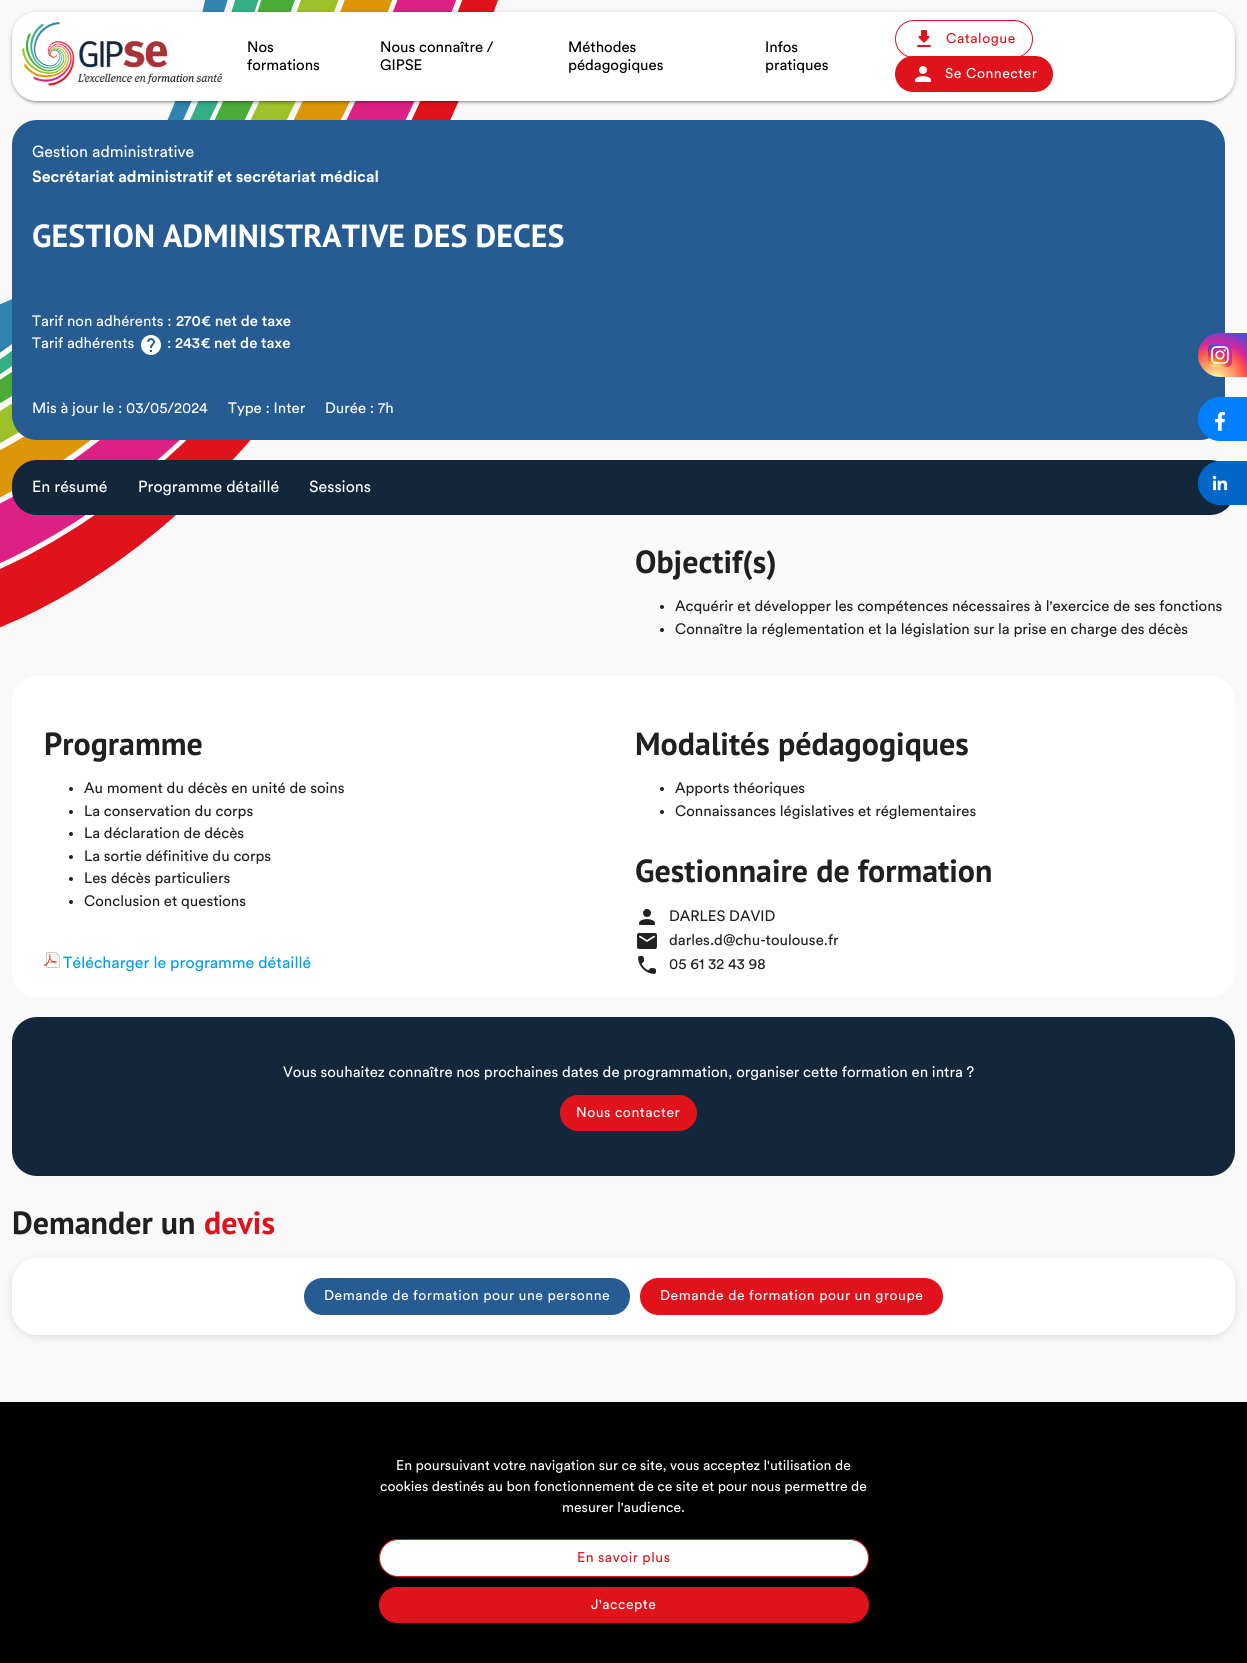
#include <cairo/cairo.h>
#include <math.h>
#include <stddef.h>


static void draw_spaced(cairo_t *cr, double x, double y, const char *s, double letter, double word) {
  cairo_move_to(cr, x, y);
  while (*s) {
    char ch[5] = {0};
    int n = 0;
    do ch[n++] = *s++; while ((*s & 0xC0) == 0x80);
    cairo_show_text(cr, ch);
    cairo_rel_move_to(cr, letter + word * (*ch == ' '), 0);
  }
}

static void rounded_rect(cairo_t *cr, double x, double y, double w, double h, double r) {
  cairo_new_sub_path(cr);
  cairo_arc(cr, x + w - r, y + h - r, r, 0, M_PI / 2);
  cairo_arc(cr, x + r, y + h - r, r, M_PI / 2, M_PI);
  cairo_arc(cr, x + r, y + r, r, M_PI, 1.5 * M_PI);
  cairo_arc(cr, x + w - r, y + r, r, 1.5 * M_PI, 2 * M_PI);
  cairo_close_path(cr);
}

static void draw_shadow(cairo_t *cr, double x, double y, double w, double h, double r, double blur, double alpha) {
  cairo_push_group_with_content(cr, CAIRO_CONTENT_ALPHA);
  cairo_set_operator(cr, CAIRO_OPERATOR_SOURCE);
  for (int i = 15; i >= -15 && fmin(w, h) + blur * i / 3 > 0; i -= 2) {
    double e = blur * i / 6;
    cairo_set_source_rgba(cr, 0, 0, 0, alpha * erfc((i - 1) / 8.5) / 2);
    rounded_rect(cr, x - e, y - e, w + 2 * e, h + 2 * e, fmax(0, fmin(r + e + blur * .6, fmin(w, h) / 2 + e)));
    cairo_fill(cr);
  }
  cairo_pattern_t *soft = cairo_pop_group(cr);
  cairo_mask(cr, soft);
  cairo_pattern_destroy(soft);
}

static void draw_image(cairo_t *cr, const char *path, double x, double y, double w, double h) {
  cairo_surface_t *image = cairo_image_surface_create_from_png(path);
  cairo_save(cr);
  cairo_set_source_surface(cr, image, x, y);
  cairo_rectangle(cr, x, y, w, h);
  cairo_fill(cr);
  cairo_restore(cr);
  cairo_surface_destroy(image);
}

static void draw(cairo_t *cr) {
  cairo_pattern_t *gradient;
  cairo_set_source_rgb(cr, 249 / 255.0, 249 / 255.0, 249 / 255.0);
  cairo_paint(cr);
  draw_image(cr, "images/1.png", 0, 0, 498, 628);
  cairo_set_source_rgb(cr, 0, 0, 0);
  draw_shadow(cr, 12, 13, 1223, 89, 25, 2.5, 0.2);
  draw_shadow(cr, 14, 17, 1219, 85, 23, 0.5, 0.12);
  draw_shadow(cr, 12, 14, 1223, 89, 25, 1, 0.14);
  cairo_set_source_rgb(cr, 1, 1, 1);
  rounded_rect(cr, 12, 12, 1223, 89, 25);
  cairo_fill(cr);
  draw_image(cr, "images/2.png", 22, 22, 200, 64);
  rounded_rect(cr, 895.5, 20.5, 137, 37, 18.5);
  cairo_set_source_rgb(cr, 224 / 255.0, 18 / 255.0, 27 / 255.0);
  cairo_set_line_width(cr, 1);
  cairo_stroke(cr);
  draw_image(cr, "images/3.png", 917, 30, 14, 17);
  rounded_rect(cr, 895, 56, 158, 36, 18);
  cairo_fill(cr);
  draw_image(cr, "images/4.png", 915, 66, 16, 16);
  cairo_set_source_rgb(cr, 38 / 255.0, 92 / 255.0, 146 / 255.0);
  rounded_rect(cr, 12, 120, 1213, 320, 25);
  cairo_fill(cr);
  draw_image(cr, "images/5.png", 141, 335, 20, 20);
  cairo_set_source_rgb(cr, 18 / 255.0, 39 / 255.0, 60 / 255.0);
  rounded_rect(cr, 12, 460, 1223, 55, 25);
  cairo_fill(cr);
  cairo_set_source_rgb(cr, 32 / 255.0, 32 / 255.0, 32 / 255.0);
  cairo_arc(cr, 662, 607, 2, 0, 2 * M_PI);
  cairo_fill(cr);
  cairo_arc(cr, 662, 630, 2, 0, 2 * M_PI);
  cairo_fill(cr);
  cairo_set_source_rgb(cr, 1, 1, 1);
  rounded_rect(cr, 12, 676, 1223, 321, 25);
  cairo_fill(cr);
  cairo_set_source_rgb(cr, 33 / 255.0, 33 / 255.0, 33 / 255.0);
  cairo_arc(cr, 71, 789, 2, 0, 2 * M_PI);
  cairo_fill(cr);
  cairo_arc(cr, 71, 812, 2, 0, 2 * M_PI);
  cairo_fill(cr);
  cairo_arc(cr, 71, 834, 2, 0, 2 * M_PI);
  cairo_fill(cr);
  cairo_arc(cr, 71, 857, 2, 0, 2 * M_PI);
  cairo_fill(cr);
  cairo_arc(cr, 71, 879, 2, 0, 2 * M_PI);
  cairo_fill(cr);
  cairo_arc(cr, 71, 902, 2, 0, 2 * M_PI);
  cairo_fill(cr);
  draw_image(cr, "images/6.png", 44, 952, 16, 16);
  cairo_arc(cr, 662, 789, 2, 0, 2 * M_PI);
  cairo_fill(cr);
  cairo_arc(cr, 662, 812, 2, 0, 2 * M_PI);
  cairo_fill(cr);
  draw_image(cr, "images/7.png", 639, 909, 16, 16);
  draw_image(cr, "images/8.png", 637, 933, 20, 16);
  draw_image(cr, "images/9.png", 638, 956, 18, 18);
  cairo_set_source_rgb(cr, 18 / 255.0, 39 / 255.0, 60 / 255.0);
  rounded_rect(cr, 12, 1017, 1223, 159, 25);
  cairo_fill(cr);
  cairo_set_source_rgb(cr, 224 / 255.0, 18 / 255.0, 27 / 255.0);
  rounded_rect(cr, 560, 1095, 137, 36, 18);
  cairo_fill(cr);
  cairo_set_source_rgb(cr, 99 / 255.0, 99 / 255.0, 99 / 255.0);
  draw_shadow(cr, 12, 1260, 1223, 77, 25, 4, 0.2);
  cairo_set_source_rgb(cr, 1, 1, 1);
  rounded_rect(cr, 12, 1258, 1223, 77, 25);
  cairo_fill(cr);
  cairo_set_source_rgb(cr, 38 / 255.0, 92 / 255.0, 146 / 255.0);
  rounded_rect(cr, 304, 1278, 326, 37, 18.5);
  cairo_fill(cr);
  cairo_set_source_rgb(cr, 224 / 255.0, 18 / 255.0, 27 / 255.0);
  rounded_rect(cr, 640, 1278, 303, 37, 18.5);
  cairo_fill(cr);
  gradient = cairo_pattern_create_radial(1216, 380, 0, 1216, 380, 63);
  cairo_pattern_add_color_stop_rgba(gradient, 0, 253 / 255.0, 244 / 255.0, 151 / 255.0, 1);
  cairo_pattern_add_color_stop_rgba(gradient, 0.05, 253 / 255.0, 244 / 255.0, 151 / 255.0, 1);
  cairo_pattern_add_color_stop_rgba(gradient, 0.45, 253 / 255.0, 89 / 255.0, 73 / 255.0, 1);
  cairo_pattern_add_color_stop_rgba(gradient, 0.6, 214 / 255.0, 36 / 255.0, 159 / 255.0, 1);
  cairo_pattern_add_color_stop_rgba(gradient, 0.9, 40 / 255.0, 90 / 255.0, 235 / 255.0, 1);
  cairo_set_source(cr, gradient);
  cairo_pattern_destroy(gradient);
  cairo_new_path(cr);
  cairo_move_to(cr, 1220, 333);
  cairo_line_to(cr, 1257, 333);
  cairo_line_to(cr, 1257, 377);
  cairo_line_to(cr, 1220, 377);
  cairo_curve_to(cr, 1208, 377, 1198, 367, 1198, 355);
  cairo_curve_to(cr, 1198, 343, 1208, 333, 1220, 333);
  cairo_close_path(cr);
  cairo_fill(cr);
  draw_image(cr, "images/10.png", 1208, 343, 24, 24);
  cairo_set_source_rgb(cr, 0, 128 / 255.0, 1);
  cairo_new_path(cr);
  cairo_move_to(cr, 1220, 397);
  cairo_line_to(cr, 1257, 397);
  cairo_line_to(cr, 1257, 441);
  cairo_line_to(cr, 1220, 441);
  cairo_curve_to(cr, 1208, 441, 1198, 431, 1198, 419);
  cairo_curve_to(cr, 1198, 407, 1208, 397, 1220, 397);
  cairo_close_path(cr);
  cairo_fill(cr);
  draw_image(cr, "images/11.png", 1215, 411, 10, 20);
  cairo_set_source_rgb(cr, 0, 102 / 255.0, 200 / 255.0);
  cairo_new_path(cr);
  cairo_move_to(cr, 1220, 461);
  cairo_line_to(cr, 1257, 461);
  cairo_line_to(cr, 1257, 505);
  cairo_line_to(cr, 1220, 505);
  cairo_curve_to(cr, 1208, 505, 1198, 495, 1198, 483);
  cairo_curve_to(cr, 1198, 471, 1208, 461, 1220, 461);
  cairo_close_path(cr);
  cairo_fill(cr);
  draw_image(cr, "images/12.png", 1212, 475, 16, 16);
  cairo_set_source_rgb(cr, 0, 0, 0);
  cairo_rectangle(cr, 0, 1402, 1247, 261);
  cairo_fill(cr);
  cairo_set_source_rgb(cr, 1, 1, 1);
  rounded_rect(cr, 379.5, 1539.5, 489, 37, 18.5);
  cairo_fill_preserve(cr);
  cairo_set_source_rgb(cr, 224 / 255.0, 18 / 255.0, 27 / 255.0);
  cairo_stroke(cr);
  rounded_rect(cr, 379, 1587, 490, 36, 18);
  cairo_fill(cr);
  cairo_select_font_face(cr, "Circular", CAIRO_FONT_SLANT_NORMAL, CAIRO_FONT_WEIGHT_NORMAL);
  cairo_set_font_size(cr, 15);
  cairo_set_source_rgb(cr, 0, 0, 0);
  cairo_move_to(cr, 247, 52);
  cairo_show_text(cr, "Nos");
  cairo_move_to(cr, 247, 70);
  cairo_show_text(cr, "formations");
  cairo_move_to(cr, 380, 52);
  cairo_show_text(cr, "Nous connaître /");
  cairo_move_to(cr, 380, 70);
  cairo_show_text(cr, "GIPSE");
  cairo_move_to(cr, 568, 52);
  cairo_show_text(cr, "Méthodes");
  cairo_move_to(cr, 568, 70);
  cairo_show_text(cr, "pédagogiques");
  cairo_move_to(cr, 765, 52);
  cairo_show_text(cr, "Infos");
  cairo_move_to(cr, 765, 70);
  cairo_show_text(cr, "pratiques");
  cairo_set_font_size(cr, 14);
  cairo_set_source_rgb(cr, 224 / 255.0, 18 / 255.0, 27 / 255.0);
  draw_spaced(cr, 946, 43, "Catalogue", 0.5, 0);
  cairo_set_source_rgb(cr, 1, 1, 1);
  draw_spaced(cr, 945, 78, "Se Connecter", 0.5, 0);
  cairo_set_font_size(cr, 16);
  cairo_move_to(cr, 32, 157);
  cairo_show_text(cr, "Gestion administrative");
  cairo_select_font_face(cr, "Circular", CAIRO_FONT_SLANT_NORMAL, CAIRO_FONT_WEIGHT_BOLD);
  cairo_move_to(cr, 32, 182);
  cairo_show_text(cr, "Secrétariat administratif et secrétariat médical");
  cairo_select_font_face(cr, "PT Sans", CAIRO_FONT_SLANT_NORMAL, CAIRO_FONT_WEIGHT_BOLD);
  cairo_set_font_size(cr, 32);
  cairo_move_to(cr, 32, 247);
  cairo_show_text(cr, "GESTION ADMINISTRATIVE DES DECES");
  cairo_select_font_face(cr, "Circular", CAIRO_FONT_SLANT_NORMAL, CAIRO_FONT_WEIGHT_NORMAL);
  cairo_set_font_size(cr, 15);
  cairo_move_to(cr, 32, 326);
  cairo_show_text(cr, "Tarif non adhérents :");
  cairo_select_font_face(cr, "Circular Medium", CAIRO_FONT_SLANT_NORMAL, CAIRO_FONT_WEIGHT_NORMAL);
  cairo_move_to(cr, 176, 326);
  cairo_show_text(cr, "270€ net de taxe");
  cairo_select_font_face(cr, "Circular", CAIRO_FONT_SLANT_NORMAL, CAIRO_FONT_WEIGHT_NORMAL);
  cairo_move_to(cr, 32, 348);
  cairo_show_text(cr, "Tarif adhérents");
  cairo_move_to(cr, 167, 348);
  cairo_show_text(cr, ":");
  cairo_select_font_face(cr, "Circular Medium", CAIRO_FONT_SLANT_NORMAL, CAIRO_FONT_WEIGHT_NORMAL);
  cairo_move_to(cr, 175, 348);
  cairo_show_text(cr, "243€ net de taxe");
  cairo_select_font_face(cr, "Circular", CAIRO_FONT_SLANT_NORMAL, CAIRO_FONT_WEIGHT_NORMAL);
  cairo_move_to(cr, 32, 413);
  cairo_show_text(cr, "Mis à jour le : 03/05/2024");
  cairo_move_to(cr, 228, 413);
  cairo_show_text(cr, "Type : Inter");
  cairo_move_to(cr, 325, 413);
  cairo_show_text(cr, "Durée : 7h");
  cairo_set_font_size(cr, 16);
  cairo_move_to(cr, 32, 492);
  cairo_show_text(cr, "En résumé");
  cairo_move_to(cr, 138, 492);
  cairo_show_text(cr, "Programme détaillé");
  cairo_move_to(cr, 309, 492);
  cairo_show_text(cr, "Sessions");
  cairo_select_font_face(cr, "PT Sans", CAIRO_FONT_SLANT_NORMAL, CAIRO_FONT_WEIGHT_BOLD);
  cairo_set_font_size(cr, 32);
  cairo_set_source_rgb(cr, 32 / 255.0, 32 / 255.0, 32 / 255.0);
  cairo_move_to(cr, 635, 573);
  cairo_show_text(cr, "Objectif(s)");
  cairo_select_font_face(cr, "Circular", CAIRO_FONT_SLANT_NORMAL, CAIRO_FONT_WEIGHT_NORMAL);
  cairo_set_font_size(cr, 15);
  cairo_move_to(cr, 675, 611);
  cairo_show_text(cr, "Acquérir et développer les compétences nécessaires à l'exercice de ses fonctions");
  cairo_move_to(cr, 675, 634);
  cairo_show_text(cr, "Connaître la réglementation et la législation sur la prise en charge des décès");
  cairo_select_font_face(cr, "PT Sans", CAIRO_FONT_SLANT_NORMAL, CAIRO_FONT_WEIGHT_BOLD);
  cairo_set_font_size(cr, 32);
  cairo_move_to(cr, 44, 755);
  cairo_show_text(cr, "Programme");
  cairo_select_font_face(cr, "Circular", CAIRO_FONT_SLANT_NORMAL, CAIRO_FONT_WEIGHT_NORMAL);
  cairo_set_font_size(cr, 15);
  cairo_move_to(cr, 84, 793);
  cairo_show_text(cr, "Au moment du décès en unité de soins");
  cairo_move_to(cr, 84, 816);
  cairo_show_text(cr, "La conservation du corps");
  cairo_move_to(cr, 84, 838);
  cairo_show_text(cr, "La déclaration de décès");
  cairo_move_to(cr, 84, 861);
  cairo_show_text(cr, "La sortie définitive du corps");
  cairo_move_to(cr, 84, 883);
  cairo_show_text(cr, "Les décès particuliers");
  cairo_move_to(cr, 84, 906);
  cairo_show_text(cr, "Conclusion et questions");
  cairo_set_font_size(cr, 16);
  cairo_set_source_rgb(cr, 3 / 255.0, 155 / 255.0, 229 / 255.0);
  cairo_move_to(cr, 63, 968);
  cairo_show_text(cr, "Télécharger le programme détaillé");
  cairo_select_font_face(cr, "PT Sans", CAIRO_FONT_SLANT_NORMAL, CAIRO_FONT_WEIGHT_BOLD);
  cairo_set_font_size(cr, 32);
  cairo_set_source_rgb(cr, 32 / 255.0, 32 / 255.0, 32 / 255.0);
  cairo_move_to(cr, 635, 755);
  cairo_show_text(cr, "Modalités pédagogiques");
  cairo_select_font_face(cr, "Circular", CAIRO_FONT_SLANT_NORMAL, CAIRO_FONT_WEIGHT_NORMAL);
  cairo_set_font_size(cr, 15);
  cairo_move_to(cr, 675, 793);
  cairo_show_text(cr, "Apports théoriques");
  cairo_move_to(cr, 675, 816);
  cairo_show_text(cr, "Connaissances législatives et réglementaires");
  cairo_select_font_face(cr, "PT Sans", CAIRO_FONT_SLANT_NORMAL, CAIRO_FONT_WEIGHT_BOLD);
  cairo_set_font_size(cr, 32);
  cairo_move_to(cr, 635, 882);
  cairo_show_text(cr, "Gestionnaire de formation");
  cairo_select_font_face(cr, "Circular", CAIRO_FONT_SLANT_NORMAL, CAIRO_FONT_WEIGHT_NORMAL);
  cairo_set_font_size(cr, 15);
  cairo_move_to(cr, 669, 921);
  cairo_show_text(cr, "DARLES DAVID");
  cairo_move_to(cr, 669, 945);
  cairo_show_text(cr, "darles.d@chu-toulouse.fr");
  cairo_move_to(cr, 669, 969);
  cairo_show_text(cr, "05 61 32 43 98");
  cairo_set_source_rgb(cr, 1, 1, 1);
  cairo_move_to(cr, 283, 1077);
  cairo_show_text(cr, "Vous souhaitez connaître nos prochaines dates de programmation, organiser cette formation en intra ?");
  cairo_set_font_size(cr, 14);
  draw_spaced(cr, 576, 1117, "Nous contacter", 0.5, 0);
  cairo_select_font_face(cr, "PT Sans", CAIRO_FONT_SLANT_NORMAL, CAIRO_FONT_WEIGHT_BOLD);
  cairo_set_font_size(cr, 32);
  cairo_set_source_rgb(cr, 32 / 255.0, 32 / 255.0, 32 / 255.0);
  cairo_move_to(cr, 12, 1234);
  cairo_show_text(cr, "Demander un");
  cairo_set_source_rgb(cr, 224 / 255.0, 18 / 255.0, 27 / 255.0);
  cairo_move_to(cr, 204, 1234);
  cairo_show_text(cr, "devis");
  cairo_select_font_face(cr, "Circular", CAIRO_FONT_SLANT_NORMAL, CAIRO_FONT_WEIGHT_NORMAL);
  cairo_set_font_size(cr, 14);
  cairo_set_source_rgb(cr, 1, 1, 1);
  draw_spaced(cr, 324, 1300, "Demande de formation pour une personne", 0.5, 0);
  draw_spaced(cr, 660, 1300, "Demande de formation pour un groupe", 0.5, 0);
  cairo_move_to(cr, 396, 1470);
  cairo_show_text(cr, "En poursuivant votre navigation sur ce site, vous acceptez l'utilisation de");
  cairo_move_to(cr, 380, 1491);
  cairo_show_text(cr, "cookies destinés au bon fonctionnement de ce site et pour nous permettre de");
  cairo_move_to(cr, 562, 1512);
  cairo_show_text(cr, "mesurer l'audience.");
  cairo_set_source_rgb(cr, 224 / 255.0, 18 / 255.0, 27 / 255.0);
  draw_spaced(cr, 577, 1562, "En savoir plus", 0.5, 0);
  cairo_set_source_rgb(cr, 1, 1, 1);
  draw_spaced(cr, 591, 1609, "J'accepte", 0.5, 0);
}

int main(void) {
  cairo_surface_t *surface = cairo_image_surface_create(CAIRO_FORMAT_RGB24, 1247, 1663);
  cairo_t *cr = cairo_create(surface);
  cairo_font_options_t *options = cairo_font_options_create();
  cairo_font_options_set_hint_metrics(options, CAIRO_HINT_METRICS_OFF);
  cairo_font_options_set_hint_style(options, CAIRO_HINT_STYLE_NONE);
  cairo_set_font_options(cr, options);
  cairo_set_miter_limit(cr, 4);
  draw(cr);
  cairo_surface_write_to_png(surface, "out.png");
  cairo_font_options_destroy(options);
  cairo_destroy(cr);
  cairo_surface_destroy(surface);
  return 0;
}
